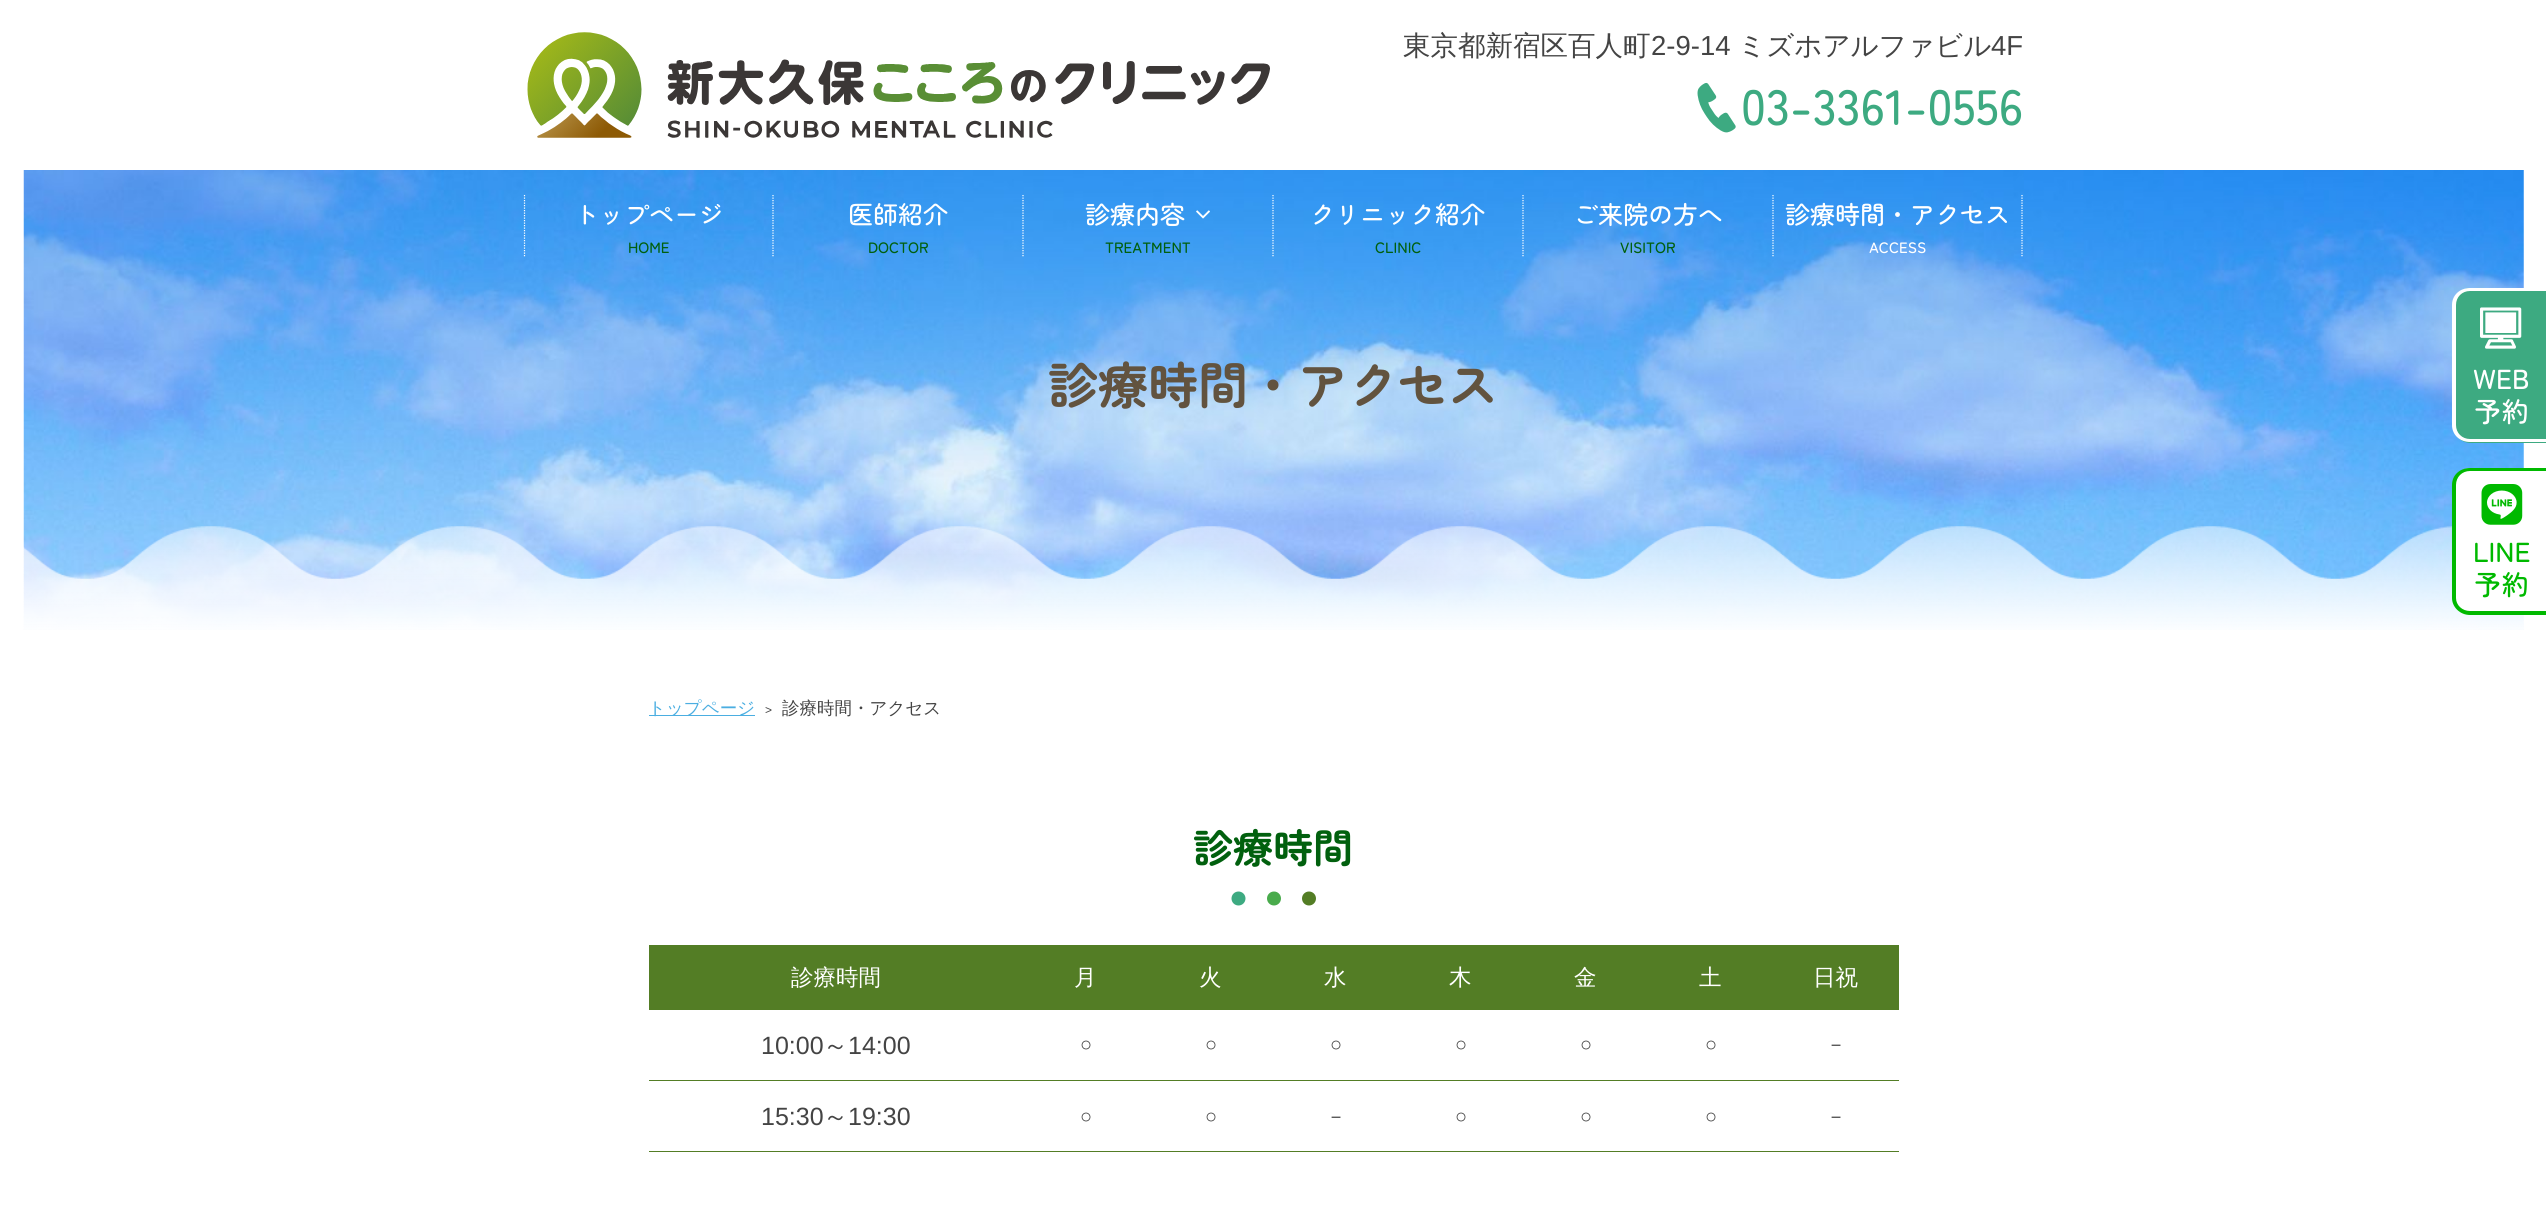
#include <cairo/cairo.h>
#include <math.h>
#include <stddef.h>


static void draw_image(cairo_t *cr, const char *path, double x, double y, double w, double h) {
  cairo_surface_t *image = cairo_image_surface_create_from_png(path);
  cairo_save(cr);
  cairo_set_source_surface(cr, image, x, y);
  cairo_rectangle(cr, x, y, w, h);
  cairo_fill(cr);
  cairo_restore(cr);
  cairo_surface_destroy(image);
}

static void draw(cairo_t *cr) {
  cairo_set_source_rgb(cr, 1, 1, 1);
  cairo_paint(cr);
  draw_image(cr, "images/1.png", 527, 32, 743, 106);
  draw_image(cr, "images/2.png", 1697, 82, 39, 51);
  draw_image(cr, "images/6.png", 23, 170, 2501, 460);
  cairo_set_source_rgb(cr, 61 / 255.0, 170 / 255.0, 129 / 255.0);
  cairo_new_path(cr);
  cairo_move_to(cr, 2471, 288);
  cairo_line_to(cr, 2546, 288);
  cairo_line_to(cr, 2546, 443);
  cairo_line_to(cr, 2471, 443);
  cairo_curve_to(cr, 2461, 443, 2453, 435, 2453, 425);
  cairo_line_to(cr, 2453, 306);
  cairo_curve_to(cr, 2453, 296, 2461, 288, 2471, 288);
  cairo_close_path(cr);
  cairo_fill(cr);
  cairo_set_source_rgb(cr, 1, 1, 1);
  cairo_set_fill_rule(cr, CAIRO_FILL_RULE_EVEN_ODD);
  cairo_new_path(cr);
  cairo_move_to(cr, 2470, 288);
  cairo_line_to(cr, 2546, 288);
  cairo_line_to(cr, 2546, 442);
  cairo_line_to(cr, 2470, 442);
  cairo_curve_to(cr, 2460, 442, 2452, 435, 2452, 425);
  cairo_line_to(cr, 2452, 305);
  cairo_curve_to(cr, 2452, 295, 2460, 288, 2470, 288);
  cairo_close_path(cr);
  cairo_move_to(cr, 2470, 291);
  cairo_line_to(cr, 2546, 291);
  cairo_line_to(cr, 2546, 439);
  cairo_line_to(cr, 2470, 439);
  cairo_curve_to(cr, 2462, 439, 2456, 433, 2456, 425);
  cairo_line_to(cr, 2456, 305);
  cairo_curve_to(cr, 2456, 297, 2462, 291, 2470, 291);
  cairo_close_path(cr);
  cairo_fill(cr);
  draw_image(cr, "images/3.png", 2480, 307, 42, 42);
  cairo_new_path(cr);
  cairo_move_to(cr, 2471, 468);
  cairo_line_to(cr, 2546, 468);
  cairo_line_to(cr, 2546, 615);
  cairo_line_to(cr, 2471, 615);
  cairo_curve_to(cr, 2461, 615, 2453, 607, 2453, 597);
  cairo_line_to(cr, 2453, 486);
  cairo_curve_to(cr, 2453, 476, 2461, 468, 2471, 468);
  cairo_close_path(cr);
  cairo_fill(cr);
  cairo_set_source_rgb(cr, 0, 185 / 255.0, 0);
  cairo_new_path(cr);
  cairo_move_to(cr, 2470, 468);
  cairo_line_to(cr, 2546, 468);
  cairo_line_to(cr, 2546, 615);
  cairo_line_to(cr, 2470, 615);
  cairo_curve_to(cr, 2460, 615, 2452, 607, 2452, 598);
  cairo_line_to(cr, 2452, 485);
  cairo_curve_to(cr, 2452, 475, 2460, 468, 2470, 468);
  cairo_close_path(cr);
  cairo_move_to(cr, 2470, 471);
  cairo_line_to(cr, 2546, 471);
  cairo_line_to(cr, 2546, 611);
  cairo_line_to(cr, 2470, 611);
  cairo_curve_to(cr, 2462, 611, 2456, 605, 2456, 598);
  cairo_line_to(cr, 2456, 485);
  cairo_curve_to(cr, 2456, 477, 2462, 471, 2470, 471);
  cairo_close_path(cr);
  cairo_fill(cr);
  draw_image(cr, "images/4.png", 2481, 484, 42, 41);
  cairo_new_path(cr);
  cairo_move_to(cr, 773, 195);
  cairo_line_to(cr, 773, 257.5);
  cairo_set_source_rgb(cr, 1, 1, 1);
  cairo_set_line_width(cr, 1.2);
  cairo_set_dash(cr, (double[]){1.25, 1.25}, 2, 0);
  cairo_stroke(cr);
  cairo_new_path(cr);
  cairo_move_to(cr, 524.5, 195);
  cairo_line_to(cr, 524.5, 257.5);
  cairo_stroke(cr);
  cairo_new_path(cr);
  cairo_move_to(cr, 1023, 195);
  cairo_line_to(cr, 1023, 257.5);
  cairo_stroke(cr);
  cairo_new_path(cr);
  cairo_move_to(cr, 1273, 195);
  cairo_line_to(cr, 1273, 257.5);
  cairo_stroke(cr);
  draw_image(cr, "images/5.png", 1196, 210, 14, 9);
  cairo_new_path(cr);
  cairo_move_to(cr, 1523, 195);
  cairo_line_to(cr, 1523, 257.5);
  cairo_stroke(cr);
  cairo_new_path(cr);
  cairo_move_to(cr, 1773, 195);
  cairo_line_to(cr, 1773, 257.5);
  cairo_stroke(cr);
  cairo_new_path(cr);
  cairo_move_to(cr, 2022, 195);
  cairo_line_to(cr, 2022, 257.5);
  cairo_stroke(cr);
  cairo_set_source_rgb(cr, 75 / 255.0, 174 / 255.0, 225 / 255.0);
  cairo_rectangle(cr, 649, 715, 106, 1);
  cairo_fill(cr);
  cairo_set_source_rgb(cr, 61 / 255.0, 170 / 255.0, 129 / 255.0);
  cairo_arc(cr, 1238.5, 898.5, 7, 0, 2 * M_PI);
  cairo_fill(cr);
  cairo_set_source_rgb(cr, 73 / 255.0, 171 / 255.0, 76 / 255.0);
  cairo_arc(cr, 1274, 898.5, 7, 0, 2 * M_PI);
  cairo_fill(cr);
  cairo_set_source_rgb(cr, 83 / 255.0, 125 / 255.0, 37 / 255.0);
  cairo_arc(cr, 1309, 898.5, 7, 0, 2 * M_PI);
  cairo_fill(cr);
  cairo_rectangle(cr, 649, 945, 1250, 65);
  cairo_fill(cr);
  cairo_rectangle(cr, 649, 1080, 1250, 1);
  cairo_fill(cr);
  cairo_rectangle(cr, 649, 1151, 1250, 1);
  cairo_fill(cr);
  cairo_select_font_face(cr, "WenQuanYi Zen Hei Medium", CAIRO_FONT_SLANT_NORMAL, CAIRO_FONT_WEIGHT_NORMAL);
  cairo_set_font_size(cr, 27.5);
  cairo_set_source_rgb(cr, 68 / 255.0, 68 / 255.0, 68 / 255.0);
  cairo_move_to(cr, 1403, 55);
  cairo_show_text(cr, "東京都新宿区百人町");
  cairo_select_font_face(cr, "Liberation Sans", CAIRO_FONT_SLANT_NORMAL, CAIRO_FONT_WEIGHT_NORMAL);
  cairo_move_to(cr, 1651, 55);
  cairo_show_text(cr, "2-9-14");
  cairo_select_font_face(cr, "WenQuanYi Zen Hei Medium", CAIRO_FONT_SLANT_NORMAL, CAIRO_FONT_WEIGHT_NORMAL);
  cairo_move_to(cr, 1738, 55);
  cairo_show_text(cr, "ミズホアルファビル");
  cairo_select_font_face(cr, "Liberation Sans", CAIRO_FONT_SLANT_NORMAL, CAIRO_FONT_WEIGHT_NORMAL);
  cairo_move_to(cr, 1991, 55);
  cairo_show_text(cr, "4F");
  cairo_select_font_face(cr, "Zen Maru Gothic Medium", CAIRO_FONT_SLANT_NORMAL, CAIRO_FONT_WEIGHT_NORMAL);
  cairo_set_font_size(cr, 49.5);
  cairo_set_source_rgb(cr, 61 / 255.0, 170 / 255.0, 129 / 255.0);
  cairo_move_to(cr, 1741, 125);
  cairo_show_text(cr, "03-3361-0556");
  cairo_set_font_size(cr, 27.5);
  cairo_set_source_rgb(cr, 1, 1, 1);
  cairo_move_to(cr, 2473, 389);
  cairo_show_text(cr, "WEB");
  cairo_move_to(cr, 2474, 422);
  cairo_show_text(cr, "予約");
  cairo_set_source_rgb(cr, 0, 185 / 255.0, 0);
  cairo_move_to(cr, 2473, 562);
  cairo_show_text(cr, "LINE");
  cairo_move_to(cr, 2474, 595);
  cairo_show_text(cr, "予約");
  cairo_set_font_size(cr, 25);
  cairo_set_source_rgb(cr, 1, 1, 1);
  cairo_move_to(cr, 574, 224);
  cairo_show_text(cr, "トップページ");
  cairo_set_font_size(cr, 15);
  cairo_set_source_rgb(cr, 1 / 255.0, 96 / 255.0, 14 / 255.0);
  cairo_move_to(cr, 628, 253);
  cairo_show_text(cr, "HOME");
  cairo_set_font_size(cr, 25);
  cairo_set_source_rgb(cr, 1, 1, 1);
  cairo_move_to(cr, 848, 224);
  cairo_show_text(cr, "医師紹介");
  cairo_set_font_size(cr, 15);
  cairo_set_source_rgb(cr, 1 / 255.0, 96 / 255.0, 14 / 255.0);
  cairo_move_to(cr, 868, 253);
  cairo_show_text(cr, "DOCTOR");
  cairo_set_font_size(cr, 25);
  cairo_set_source_rgb(cr, 1, 1, 1);
  cairo_move_to(cr, 1085, 224);
  cairo_show_text(cr, "診療内容");
  cairo_set_font_size(cr, 15);
  cairo_set_source_rgb(cr, 1 / 255.0, 96 / 255.0, 14 / 255.0);
  cairo_move_to(cr, 1105, 253);
  cairo_show_text(cr, "TREATMENT");
  cairo_set_font_size(cr, 25);
  cairo_set_source_rgb(cr, 1, 1, 1);
  cairo_move_to(cr, 1310, 224);
  cairo_show_text(cr, "クリニック紹介");
  cairo_set_font_size(cr, 15);
  cairo_set_source_rgb(cr, 1 / 255.0, 96 / 255.0, 14 / 255.0);
  cairo_move_to(cr, 1375, 253);
  cairo_show_text(cr, "CLINIC");
  cairo_set_font_size(cr, 25);
  cairo_set_source_rgb(cr, 1, 1, 1);
  cairo_move_to(cr, 1573, 224);
  cairo_show_text(cr, "ご来院の方へ");
  cairo_set_font_size(cr, 15);
  cairo_set_source_rgb(cr, 1 / 255.0, 96 / 255.0, 14 / 255.0);
  cairo_move_to(cr, 1620, 253);
  cairo_show_text(cr, "VISITOR");
  cairo_set_font_size(cr, 25);
  cairo_set_source_rgb(cr, 1, 1, 1);
  cairo_move_to(cr, 1785, 224);
  cairo_show_text(cr, "診療時間・アクセス");
  cairo_set_font_size(cr, 15);
  cairo_move_to(cr, 1869, 253);
  cairo_show_text(cr, "ACCESS");
  cairo_select_font_face(cr, "Zen Maru Gothic", CAIRO_FONT_SLANT_NORMAL, CAIRO_FONT_WEIGHT_BOLD);
  cairo_set_font_size(cr, 50);
  cairo_set_source_rgb(cr, 98 / 255.0, 83 / 255.0, 63 / 255.0);
  cairo_move_to(cr, 1048, 404);
  cairo_show_text(cr, "診療時間・アクセス");
  cairo_select_font_face(cr, "WenQuanYi Zen Hei Medium", CAIRO_FONT_SLANT_NORMAL, CAIRO_FONT_WEIGHT_NORMAL);
  cairo_set_font_size(cr, 17.5);
  cairo_set_source_rgb(cr, 75 / 255.0, 174 / 255.0, 225 / 255.0);
  cairo_move_to(cr, 648, 714);
  cairo_show_text(cr, "トップページ");
  cairo_select_font_face(cr, "Liberation Sans", CAIRO_FONT_SLANT_NORMAL, CAIRO_FONT_WEIGHT_NORMAL);
  cairo_set_font_size(cr, 12);
  cairo_set_source_rgb(cr, 68 / 255.0, 68 / 255.0, 68 / 255.0);
  cairo_move_to(cr, 765, 714);
  cairo_show_text(cr, ">");
  cairo_select_font_face(cr, "WenQuanYi Zen Hei Medium", CAIRO_FONT_SLANT_NORMAL, CAIRO_FONT_WEIGHT_NORMAL);
  cairo_set_font_size(cr, 17.5);
  cairo_move_to(cr, 782, 714);
  cairo_show_text(cr, "診療時間・アクセス");
  cairo_select_font_face(cr, "Zen Maru Gothic", CAIRO_FONT_SLANT_NORMAL, CAIRO_FONT_WEIGHT_BOLD);
  cairo_set_font_size(cr, 40);
  cairo_set_source_rgb(cr, 1 / 255.0, 96 / 255.0, 14 / 255.0);
  cairo_move_to(cr, 1193, 863);
  cairo_show_text(cr, "診療時間");
  cairo_select_font_face(cr, "WenQuanYi Zen Hei Medium", CAIRO_FONT_SLANT_NORMAL, CAIRO_FONT_WEIGHT_NORMAL);
  cairo_set_font_size(cr, 22.5);
  cairo_set_source_rgb(cr, 1, 1, 1);
  cairo_move_to(cr, 791, 985);
  cairo_show_text(cr, "診療時間");
  cairo_move_to(cr, 1074, 985);
  cairo_show_text(cr, "月");
  cairo_move_to(cr, 1199, 985);
  cairo_show_text(cr, "火");
  cairo_move_to(cr, 1324, 985);
  cairo_show_text(cr, "水");
  cairo_move_to(cr, 1449, 985);
  cairo_show_text(cr, "木");
  cairo_move_to(cr, 1574, 985);
  cairo_show_text(cr, "金");
  cairo_move_to(cr, 1699, 985);
  cairo_show_text(cr, "土");
  cairo_move_to(cr, 1813, 985);
  cairo_show_text(cr, "日祝");
  cairo_select_font_face(cr, "Liberation Sans", CAIRO_FONT_SLANT_NORMAL, CAIRO_FONT_WEIGHT_NORMAL);
  cairo_set_font_size(cr, 25);
  cairo_set_source_rgb(cr, 68 / 255.0, 68 / 255.0, 68 / 255.0);
  cairo_move_to(cr, 761, 1054);
  cairo_show_text(cr, "10:00");
  cairo_select_font_face(cr, "WenQuanYi Zen Hei Medium", CAIRO_FONT_SLANT_NORMAL, CAIRO_FONT_WEIGHT_NORMAL);
  cairo_move_to(cr, 823, 1054);
  cairo_show_text(cr, "～");
  cairo_select_font_face(cr, "Liberation Sans", CAIRO_FONT_SLANT_NORMAL, CAIRO_FONT_WEIGHT_NORMAL);
  cairo_move_to(cr, 848, 1054);
  cairo_show_text(cr, "14:00");
  cairo_set_font_size(cr, 20);
  cairo_move_to(cr, 1080, 1051);
  cairo_show_text(cr, "○");
  cairo_move_to(cr, 1205, 1051);
  cairo_show_text(cr, "○");
  cairo_move_to(cr, 1330, 1051);
  cairo_show_text(cr, "○");
  cairo_move_to(cr, 1455, 1051);
  cairo_show_text(cr, "○");
  cairo_move_to(cr, 1580, 1051);
  cairo_show_text(cr, "○");
  cairo_move_to(cr, 1705, 1051);
  cairo_show_text(cr, "○");
  cairo_select_font_face(cr, "WenQuanYi Zen Hei Medium", CAIRO_FONT_SLANT_NORMAL, CAIRO_FONT_WEIGHT_NORMAL);
  cairo_move_to(cr, 1826, 1051);
  cairo_show_text(cr, "－");
  cairo_select_font_face(cr, "Liberation Sans", CAIRO_FONT_SLANT_NORMAL, CAIRO_FONT_WEIGHT_NORMAL);
  cairo_set_font_size(cr, 25);
  cairo_move_to(cr, 761, 1125);
  cairo_show_text(cr, "15:30");
  cairo_select_font_face(cr, "WenQuanYi Zen Hei Medium", CAIRO_FONT_SLANT_NORMAL, CAIRO_FONT_WEIGHT_NORMAL);
  cairo_move_to(cr, 823, 1125);
  cairo_show_text(cr, "～");
  cairo_select_font_face(cr, "Liberation Sans", CAIRO_FONT_SLANT_NORMAL, CAIRO_FONT_WEIGHT_NORMAL);
  cairo_move_to(cr, 848, 1125);
  cairo_show_text(cr, "19:30");
  cairo_set_font_size(cr, 20);
  cairo_move_to(cr, 1080, 1123);
  cairo_show_text(cr, "○");
  cairo_move_to(cr, 1205, 1123);
  cairo_show_text(cr, "○");
  cairo_select_font_face(cr, "WenQuanYi Zen Hei Medium", CAIRO_FONT_SLANT_NORMAL, CAIRO_FONT_WEIGHT_NORMAL);
  cairo_move_to(cr, 1326, 1123);
  cairo_show_text(cr, "－");
  cairo_select_font_face(cr, "Liberation Sans", CAIRO_FONT_SLANT_NORMAL, CAIRO_FONT_WEIGHT_NORMAL);
  cairo_move_to(cr, 1455, 1123);
  cairo_show_text(cr, "○");
  cairo_move_to(cr, 1580, 1123);
  cairo_show_text(cr, "○");
  cairo_move_to(cr, 1705, 1123);
  cairo_show_text(cr, "○");
  cairo_select_font_face(cr, "WenQuanYi Zen Hei Medium", CAIRO_FONT_SLANT_NORMAL, CAIRO_FONT_WEIGHT_NORMAL);
  cairo_move_to(cr, 1826, 1123);
  cairo_show_text(cr, "－");
}

int main(void) {
  cairo_surface_t *surface = cairo_image_surface_create(CAIRO_FORMAT_RGB24, 2546, 1219);
  cairo_t *cr = cairo_create(surface);
  cairo_font_options_t *options = cairo_font_options_create();
  cairo_font_options_set_hint_metrics(options, CAIRO_HINT_METRICS_OFF);
  cairo_font_options_set_hint_style(options, CAIRO_HINT_STYLE_NONE);
  cairo_set_font_options(cr, options);
  cairo_set_miter_limit(cr, 4);
  draw(cr);
  cairo_surface_write_to_png(surface, "out.png");
  cairo_font_options_destroy(options);
  cairo_destroy(cr);
  cairo_surface_destroy(surface);
  return 0;
}
